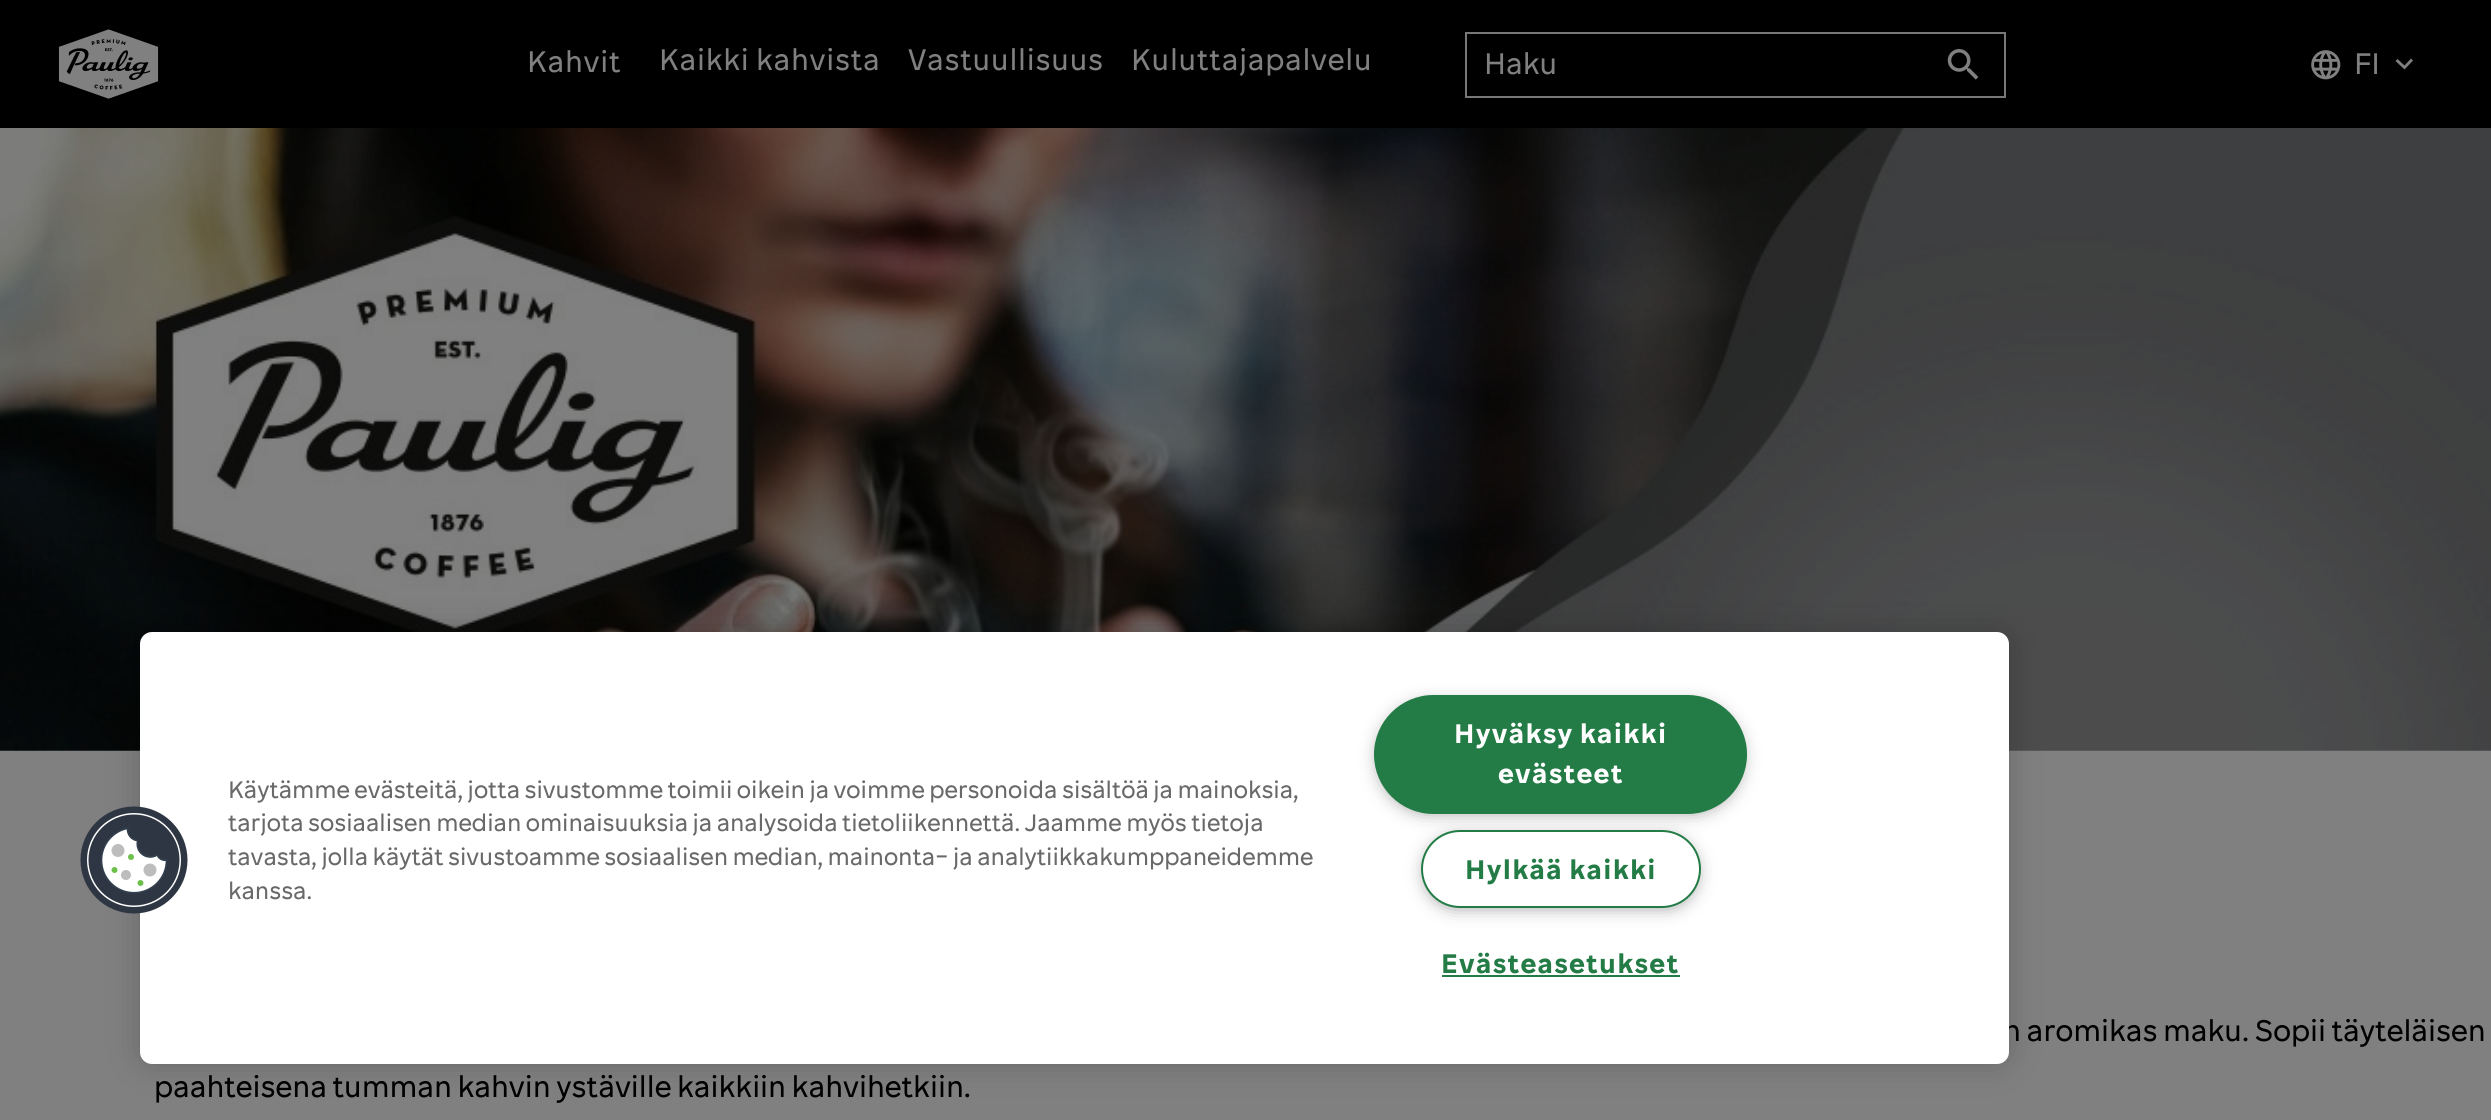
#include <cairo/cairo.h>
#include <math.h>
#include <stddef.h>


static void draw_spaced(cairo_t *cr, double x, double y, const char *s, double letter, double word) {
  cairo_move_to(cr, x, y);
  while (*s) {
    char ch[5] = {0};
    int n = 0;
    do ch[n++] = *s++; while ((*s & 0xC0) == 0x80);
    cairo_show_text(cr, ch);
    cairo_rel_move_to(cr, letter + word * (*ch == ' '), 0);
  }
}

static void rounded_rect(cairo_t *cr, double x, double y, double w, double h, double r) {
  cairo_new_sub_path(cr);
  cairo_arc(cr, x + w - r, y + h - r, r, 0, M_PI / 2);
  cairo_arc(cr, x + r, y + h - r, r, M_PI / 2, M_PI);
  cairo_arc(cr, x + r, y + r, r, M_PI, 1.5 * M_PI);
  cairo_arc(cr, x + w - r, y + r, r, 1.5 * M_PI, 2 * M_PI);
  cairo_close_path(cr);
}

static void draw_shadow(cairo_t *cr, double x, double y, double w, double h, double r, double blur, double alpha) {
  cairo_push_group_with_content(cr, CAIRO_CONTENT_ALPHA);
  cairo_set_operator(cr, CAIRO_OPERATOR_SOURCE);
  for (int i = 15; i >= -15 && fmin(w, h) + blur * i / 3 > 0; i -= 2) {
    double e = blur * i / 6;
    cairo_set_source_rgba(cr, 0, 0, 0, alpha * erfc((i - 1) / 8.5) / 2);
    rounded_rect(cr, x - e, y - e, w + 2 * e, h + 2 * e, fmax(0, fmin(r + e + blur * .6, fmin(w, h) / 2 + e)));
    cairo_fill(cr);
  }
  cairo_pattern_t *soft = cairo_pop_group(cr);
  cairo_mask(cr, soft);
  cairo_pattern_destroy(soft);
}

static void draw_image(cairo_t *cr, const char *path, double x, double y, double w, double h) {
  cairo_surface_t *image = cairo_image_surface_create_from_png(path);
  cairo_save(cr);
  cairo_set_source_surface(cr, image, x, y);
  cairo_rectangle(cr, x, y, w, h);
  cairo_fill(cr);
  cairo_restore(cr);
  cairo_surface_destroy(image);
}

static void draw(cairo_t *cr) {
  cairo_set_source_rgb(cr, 128 / 255.0, 128 / 255.0, 128 / 255.0);
  cairo_paint(cr);
  cairo_set_source_rgb(cr, 0, 0, 0);
  cairo_rectangle(cr, 0, 0, 2491, 128);
  cairo_fill(cr);
  draw_image(cr, "images/1.png", 58, 29, 101, 70);
  cairo_rectangle(cr, 1466, 33, 539, 64);
  cairo_set_source_rgb(cr, 119 / 255.0, 119 / 255.0, 119 / 255.0);
  cairo_stroke(cr);
  draw_image(cr, "images/2.png", 1947, 49, 32, 31);
  draw_image(cr, "images/3.png", 2311, 50, 30, 30);
  cairo_set_source_rgb(cr, 128 / 255.0, 128 / 255.0, 128 / 255.0);
  cairo_new_path(cr);
  cairo_move_to(cr, 2397.5, 59);
  cairo_line_to(cr, 2404.5, 65.5);
  cairo_line_to(cr, 2411, 58.5);
  cairo_line_to(cr, 2413, 60.5);
  cairo_line_to(cr, 2404.5, 69.5);
  cairo_line_to(cr, 2395.5, 61);
  cairo_close_path(cr);
  cairo_fill(cr);
  draw_image(cr, "images/4.png", 0, 128, 2491, 623);
  cairo_set_source_rgb(cr, 0, 0, 0);
  draw_shadow(cr, 140, 632, 1869, 432, 12, 16, 0.2);
  cairo_select_font_face(cr, "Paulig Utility", CAIRO_FONT_SLANT_NORMAL, CAIRO_FONT_WEIGHT_NORMAL);
  cairo_set_font_size(cr, 28);
  cairo_set_source_rgb(cr, 128 / 255.0, 128 / 255.0, 128 / 255.0);
  draw_spaced(cr, 527, 72, "Kahvit", 0.75, 0);
  draw_spaced(cr, 659, 70, "Kaikki kahvista", 0.75, 0);
  draw_spaced(cr, 908, 70, "Vastuullisuus", 0.75, 0);
  draw_spaced(cr, 1131, 70, "Kuluttajapalvelu", 0.75, 0);
  cairo_move_to(cr, 1484, 74);
  cairo_show_text(cr, "Haku");
  cairo_move_to(cr, 2354, 74);
  cairo_show_text(cr, "FI");
  cairo_set_source_rgb(cr, 0, 0, 0);
  cairo_move_to(cr, 2003, 1041);
  cairo_show_text(cr, "n aromikas maku. Sopii täyteläisen");
  cairo_move_to(cr, 154, 1097);
  cairo_show_text(cr, "paahteisena tumman kahvin ystäville kaikkiin kahvihetkiin.");
  cairo_set_source_rgb(cr, 1, 1, 1);
  rounded_rect(cr, 140, 632, 1869, 432, 12);
  cairo_fill(cr);
  draw_image(cr, "images/5.png", 80, 806, 108, 108);
  cairo_set_font_size(cr, 22.4);
  cairo_set_source_rgb(cr, 105 / 255.0, 105 / 255.0, 105 / 255.0);
  cairo_move_to(cr, 228, 798);
  cairo_show_text(cr, "Käytämme evästeitä, jotta sivustomme toimii oikein ja voimme personoida sisältöä ja mainoksia,");
  cairo_move_to(cr, 228, 831);
  cairo_show_text(cr, "tarjota sosiaalisen median ominaisuuksia ja analysoida tietoliikennettä. Jaamme myös tietoja");
  cairo_move_to(cr, 228, 865);
  cairo_show_text(cr, "tavasta, jolla käytät sivustoamme sosiaalisen median, mainonta- ja analytiikkakumppaneidemme");
  cairo_move_to(cr, 228, 899);
  cairo_show_text(cr, "kanssa.");
  cairo_set_source_rgb(cr, 153 / 255.0, 153 / 255.0, 153 / 255.0);
  draw_shadow(cr, 1379, 704, 362, 108, 54, 9, 1);
  cairo_set_source_rgb(cr, 35 / 255.0, 123 / 255.0, 69 / 255.0);
  rounded_rect(cr, 1375, 696, 371, 117, 58.5);
  cairo_fill_preserve(cr);
  cairo_stroke(cr);
  cairo_select_font_face(cr, "Paulig Utility SemiBold", CAIRO_FONT_SLANT_NORMAL, CAIRO_FONT_WEIGHT_NORMAL);
  cairo_set_font_size(cr, 25.25);
  cairo_set_source_rgb(cr, 1, 1, 1);
  draw_spaced(cr, 1454, 743, "Hyväksy kaikki", 1.25, 0);
  draw_spaced(cr, 1498, 783, "evästeet", 1.25, 0);
  cairo_set_source_rgb(cr, 153 / 255.0, 153 / 255.0, 153 / 255.0);
  draw_shadow(cr, 1426, 838, 270, 69, 34.5, 9, 1);
  cairo_set_source_rgb(cr, 1, 1, 1);
  rounded_rect(cr, 1422, 831, 278, 76, 38);
  cairo_fill_preserve(cr);
  cairo_set_source_rgb(cr, 35 / 255.0, 123 / 255.0, 69 / 255.0);
  cairo_stroke(cr);
  draw_spaced(cr, 1465, 879, "Hylkää kaikki", 1.25, 0);
  draw_spaced(cr, 1441, 973, "Evästeasetukset", 1.25, 0);
  cairo_rectangle(cr, 1442, 975, 238, 2);
  cairo_fill(cr);
}

int main(void) {
  cairo_surface_t *surface = cairo_image_surface_create(CAIRO_FORMAT_RGB24, 2491, 1120);
  cairo_t *cr = cairo_create(surface);
  cairo_font_options_t *options = cairo_font_options_create();
  cairo_font_options_set_hint_metrics(options, CAIRO_HINT_METRICS_OFF);
  cairo_font_options_set_hint_style(options, CAIRO_HINT_STYLE_NONE);
  cairo_set_font_options(cr, options);
  cairo_set_miter_limit(cr, 4);
  draw(cr);
  cairo_surface_write_to_png(surface, "out.png");
  cairo_font_options_destroy(options);
  cairo_destroy(cr);
  cairo_surface_destroy(surface);
  return 0;
}
